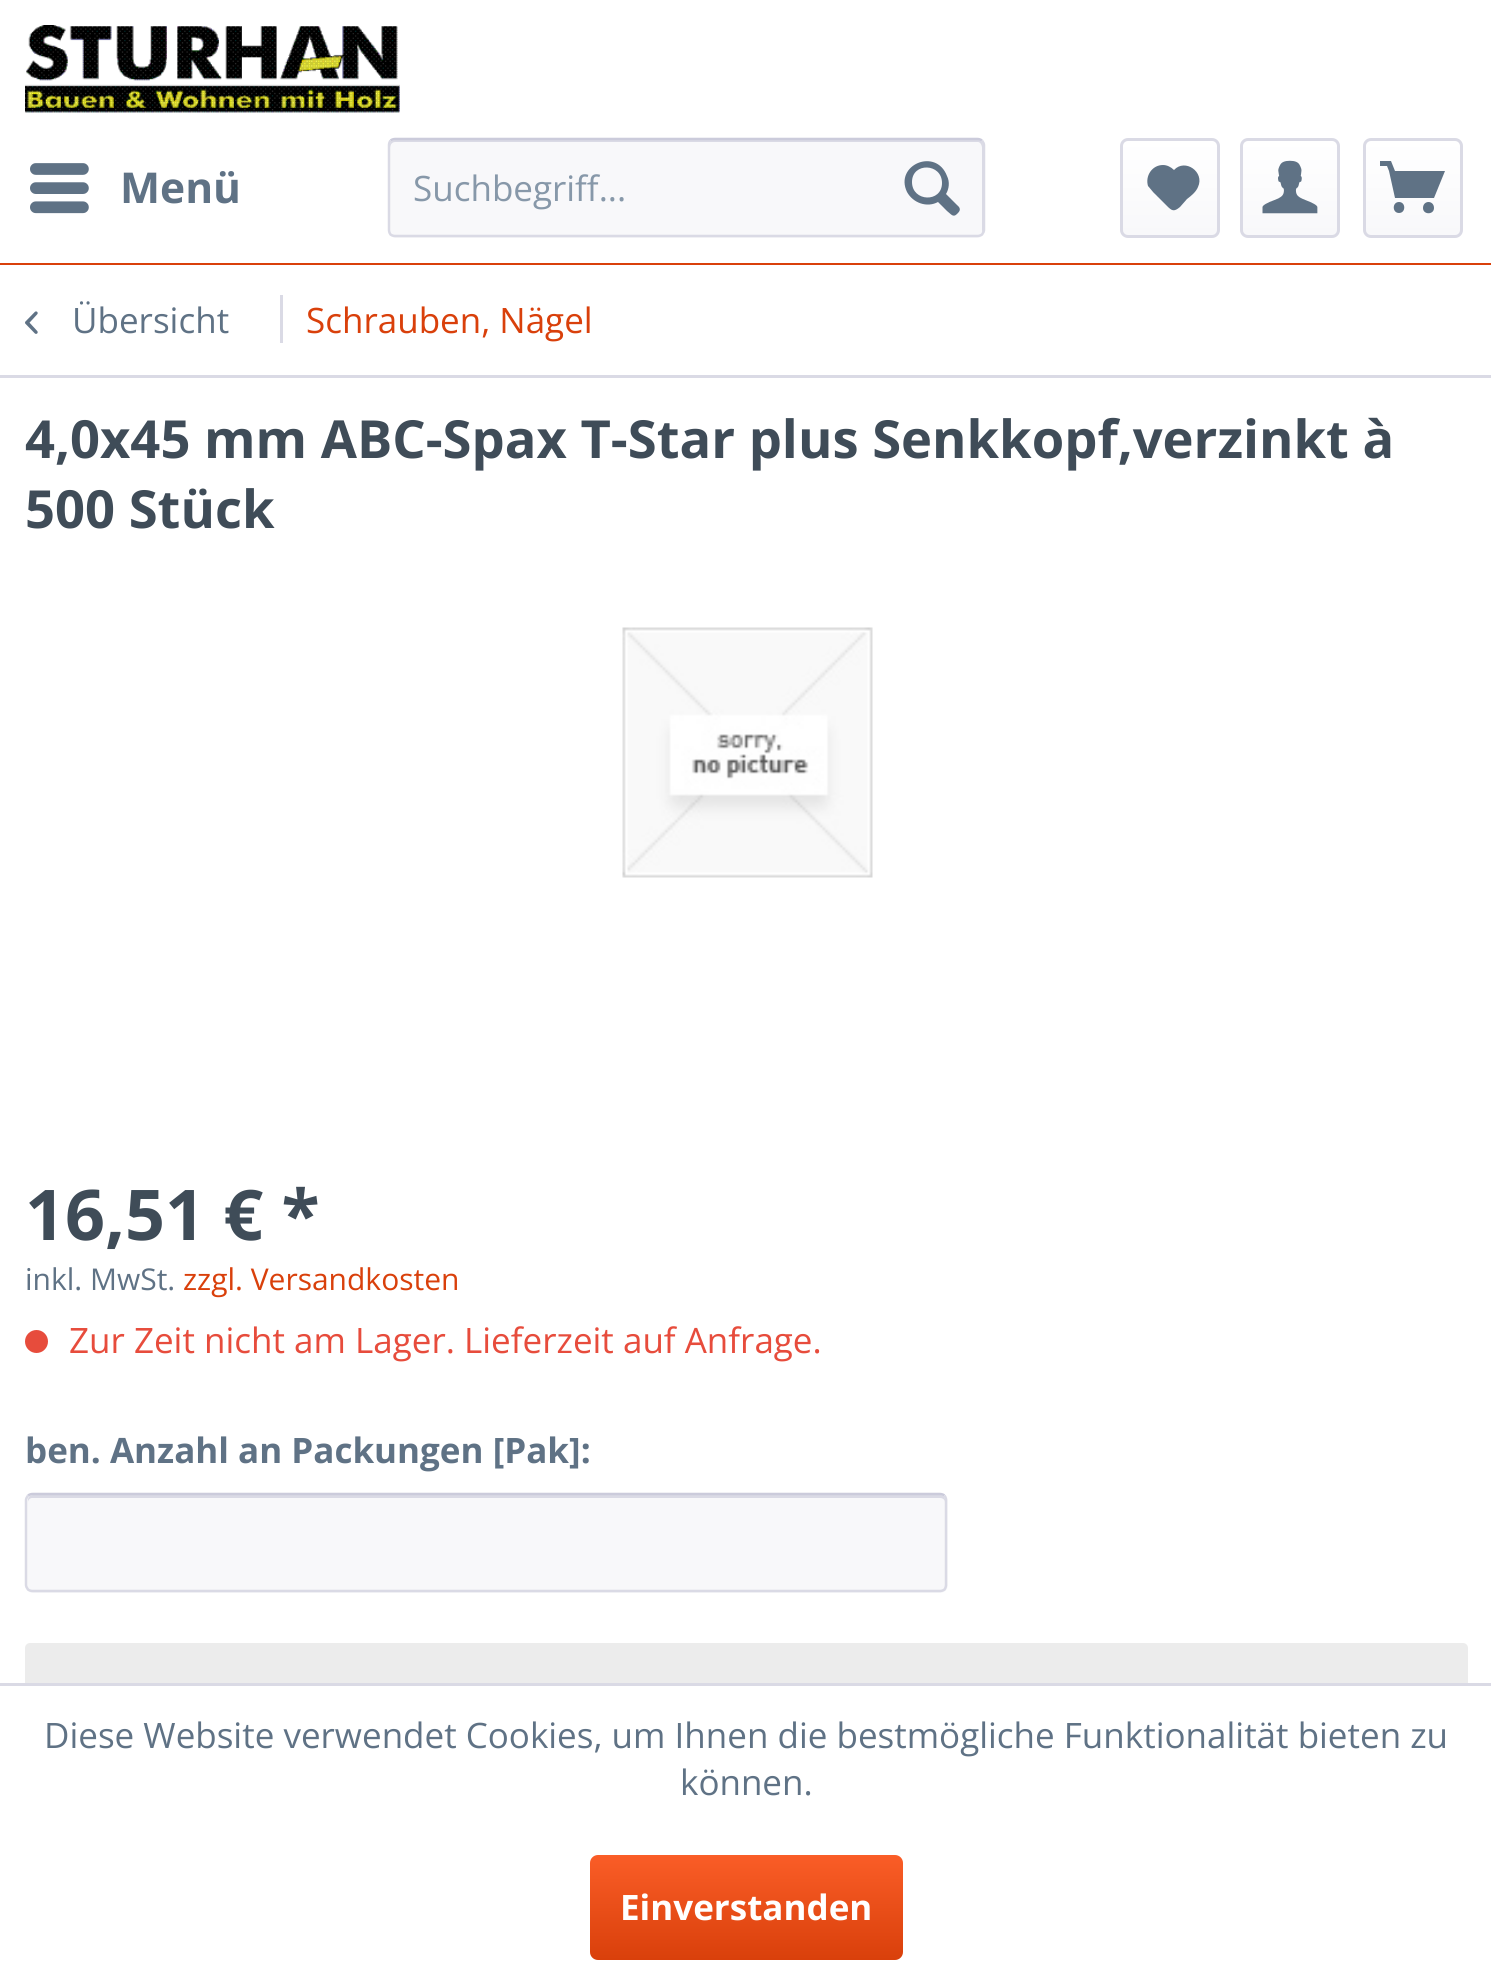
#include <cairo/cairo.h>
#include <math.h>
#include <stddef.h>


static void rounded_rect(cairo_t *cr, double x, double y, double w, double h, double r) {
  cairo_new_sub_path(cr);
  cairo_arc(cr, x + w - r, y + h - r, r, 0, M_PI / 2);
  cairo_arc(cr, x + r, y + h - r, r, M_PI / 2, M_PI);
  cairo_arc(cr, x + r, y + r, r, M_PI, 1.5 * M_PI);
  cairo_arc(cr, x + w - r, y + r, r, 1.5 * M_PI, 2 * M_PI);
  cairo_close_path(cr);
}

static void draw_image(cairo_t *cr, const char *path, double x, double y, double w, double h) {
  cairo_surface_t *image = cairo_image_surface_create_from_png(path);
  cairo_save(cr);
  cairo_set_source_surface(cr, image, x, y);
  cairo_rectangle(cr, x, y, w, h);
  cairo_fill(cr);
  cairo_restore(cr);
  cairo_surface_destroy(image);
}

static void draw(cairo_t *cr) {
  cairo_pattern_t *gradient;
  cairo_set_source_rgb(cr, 1, 1, 1);
  cairo_paint(cr);
  cairo_set_source_rgb(cr, 217 / 255.0, 64 / 255.0, 11 / 255.0);
  cairo_rectangle(cr, 0, 263, 1491, 2);
  cairo_fill(cr);
  draw_image(cr, "images/1.png", 25, 25, 375, 88);
  draw_image(cr, "images/2.png", 30, 163, 59, 51);
  cairo_set_source_rgb(cr, 248 / 255.0, 248 / 255.0, 250 / 255.0);
  rounded_rect(cr, 388, 138, 597, 100, 8);
  cairo_fill(cr);
  cairo_set_source_rgb(cr, 218 / 255.0, 218 / 255.0, 229 / 255.0);
  cairo_new_path(cr);
  cairo_move_to(cr, 395, 142);
  cairo_line_to(cr, 978, 142);
  cairo_curve_to(cr, 980, 142, 982, 145, 982, 148);
  cairo_line_to(cr, 982, 233);
  cairo_curve_to(cr, 983, 232, 983, 231, 983, 230);
  cairo_line_to(cr, 983, 145);
  cairo_curve_to(cr, 983, 142, 981, 140, 978, 140);
  cairo_line_to(cr, 395, 140);
  cairo_curve_to(cr, 392, 140, 390, 142, 390, 145);
  cairo_line_to(cr, 390, 148);
  cairo_curve_to(cr, 390, 145, 392, 142, 395, 142);
  cairo_close_path(cr);
  cairo_fill(cr);
  cairo_new_path(cr);
  cairo_move_to(cr, 390.5, 140.5);
  cairo_curve_to(cr, 392, 139.5, 393.5, 139, 395, 139);
  cairo_line_to(cr, 977.5, 139);
  cairo_curve_to(cr, 979, 139, 980.5, 139.5, 982, 140.5);
  cairo_set_source_rgb(cr, 203 / 255.0, 203 / 255.0, 219 / 255.0);
  cairo_set_line_width(cr, 2.5);
  cairo_stroke(cr);
  cairo_new_path(cr);
  cairo_move_to(cr, 982, 140.5);
  cairo_curve_to(cr, 983, 142, 984, 143.5, 984, 145);
  cairo_line_to(cr, 984, 230);
  cairo_curve_to(cr, 984, 231.5, 983, 233, 982, 234.5);
  cairo_curve_to(cr, 980.5, 235.5, 979, 236, 977.5, 236);
  cairo_line_to(cr, 395, 236);
  cairo_curve_to(cr, 393.5, 236, 392, 235.5, 390.5, 234.5);
  cairo_curve_to(cr, 389.5, 233, 389, 231.5, 389, 230);
  cairo_line_to(cr, 389, 145);
  cairo_curve_to(cr, 389, 143.5, 389.5, 142, 390.5, 140.5);
  cairo_set_source_rgb(cr, 218 / 255.0, 218 / 255.0, 229 / 255.0);
  cairo_stroke(cr);
  cairo_set_source_rgb(cr, 95 / 255.0, 114 / 255.0, 133 / 255.0);
  cairo_new_path(cr);
  cairo_move_to(cr, 959, 207);
  cairo_line_to(cr, 946, 194);
  cairo_curve_to(cr, 949, 189, 950, 182, 947, 176);
  cairo_curve_to(cr, 936, 147, 894, 165, 907, 192);
  cairo_curve_to(cr, 913, 203, 927, 208, 938, 202);
  cairo_line_to(cr, 947, 211);
  cairo_curve_to(cr, 951, 214, 953, 218, 957, 214);
  cairo_curve_to(cr, 959, 212, 961, 210, 959, 207);
  cairo_close_path(cr);
  cairo_move_to(cr, 912, 182);
  cairo_curve_to(cr, 912, 162, 942, 163, 942, 183);
  cairo_curve_to(cr, 942, 203, 912, 202, 912, 182);
  cairo_close_path(cr);
  cairo_fill(cr);
  gradient = cairo_pattern_create_linear(1170, 140, 1170, 235);
  cairo_pattern_add_color_stop_rgba(gradient, 0, 1, 1, 1, 1);
  cairo_pattern_add_color_stop_rgba(gradient, 1, 248 / 255.0, 248 / 255.0, 250 / 255.0, 1);
  cairo_set_source(cr, gradient);
  cairo_pattern_destroy(gradient);
  rounded_rect(cr, 1123, 140, 95, 95, 5);
  cairo_fill(cr);
  rounded_rect(cr, 1121.5, 139.5, 97, 97, 6.5);
  cairo_set_source_rgb(cr, 218 / 255.0, 218 / 255.0, 229 / 255.0);
  cairo_set_line_width(cr, 3);
  cairo_stroke(cr);
  cairo_set_source_rgb(cr, 95 / 255.0, 114 / 255.0, 133 / 255.0);
  cairo_new_path(cr);
  cairo_move_to(cr, 1163, 165);
  cairo_curve_to(cr, 1152, 165, 1145, 176, 1148, 186);
  cairo_curve_to(cr, 1149, 187, 1153, 192, 1153, 192);
  cairo_line_to(cr, 1167, 206);
  cairo_curve_to(cr, 1172, 211, 1174, 212, 1180, 207);
  cairo_line_to(cr, 1187, 199);
  cairo_curve_to(cr, 1191, 196, 1196, 192, 1198, 187);
  cairo_curve_to(cr, 1205, 172, 1185, 158, 1174, 170);
  cairo_curve_to(cr, 1171, 167, 1167, 165, 1163, 165);
  cairo_close_path(cr);
  cairo_fill(cr);
  gradient = cairo_pattern_create_linear(1290, 140, 1290, 235);
  cairo_pattern_add_color_stop_rgba(gradient, 0, 1, 1, 1, 1);
  cairo_pattern_add_color_stop_rgba(gradient, 1, 248 / 255.0, 248 / 255.0, 250 / 255.0, 1);
  cairo_set_source(cr, gradient);
  cairo_pattern_destroy(gradient);
  rounded_rect(cr, 1243, 140, 95, 95, 5);
  cairo_fill(cr);
  rounded_rect(cr, 1241.5, 139.5, 97, 97, 6.5);
  cairo_set_source_rgb(cr, 218 / 255.0, 218 / 255.0, 229 / 255.0);
  cairo_stroke(cr);
  draw_image(cr, "images/3.png", 1262, 160, 56, 54);
  gradient = cairo_pattern_create_linear(1413, 140, 1413, 235);
  cairo_pattern_add_color_stop_rgba(gradient, 0, 1, 1, 1, 1);
  cairo_pattern_add_color_stop_rgba(gradient, 1, 248 / 255.0, 248 / 255.0, 250 / 255.0, 1);
  cairo_set_source(cr, gradient);
  cairo_pattern_destroy(gradient);
  rounded_rect(cr, 1365, 140, 95, 95, 5);
  cairo_fill(cr);
  rounded_rect(cr, 1364.5, 139.5, 97, 97, 6.5);
  cairo_set_source_rgb(cr, 218 / 255.0, 218 / 255.0, 229 / 255.0);
  cairo_stroke(cr);
  cairo_set_source_rgb(cr, 95 / 255.0, 114 / 255.0, 133 / 255.0);
  cairo_new_path(cr);
  cairo_move_to(cr, 1395, 198);
  cairo_line_to(cr, 1434, 198);
  cairo_line_to(cr, 1445, 171);
  cairo_line_to(cr, 1395, 171);
  cairo_line_to(cr, 1391, 161);
  cairo_line_to(cr, 1380, 161);
  cairo_line_to(cr, 1380, 166);
  cairo_line_to(cr, 1387, 166);
  cairo_line_to(cr, 1389, 171);
  cairo_close_path(cr);
  cairo_move_to(cr, 1399, 202);
  cairo_curve_to(cr, 1392, 202, 1392, 213, 1399, 213);
  cairo_curve_to(cr, 1406, 213, 1406, 202, 1399, 202);
  cairo_close_path(cr);
  cairo_move_to(cr, 1434, 208);
  cairo_curve_to(cr, 1434, 215, 1423, 215, 1423, 208);
  cairo_curve_to(cr, 1423, 200, 1434, 200, 1434, 208);
  cairo_close_path(cr);
  cairo_fill(cr);
  cairo_set_source_rgb(cr, 218 / 255.0, 218 / 255.0, 229 / 255.0);
  cairo_rectangle(cr, 0, 375, 1491, 3);
  cairo_fill(cr);
  draw_image(cr, "images/4.png", 25, 311, 13, 23);
  cairo_rectangle(cr, 280, 295, 3, 48);
  cairo_fill(cr);
  draw_image(cr, "images/5.png", 622, 627, 251, 251);
  cairo_set_source_rgb(cr, 231 / 255.0, 76 / 255.0, 60 / 255.0);
  cairo_arc(cr, 36.5, 1341.5, 11.5, 0, 2 * M_PI);
  cairo_fill(cr);
  cairo_set_source_rgb(cr, 248 / 255.0, 248 / 255.0, 250 / 255.0);
  rounded_rect(cr, 25, 1493, 923, 100, 8);
  cairo_fill(cr);
  cairo_set_source_rgb(cr, 218 / 255.0, 218 / 255.0, 229 / 255.0);
  cairo_new_path(cr);
  cairo_move_to(cr, 32, 1498);
  cairo_line_to(cr, 940, 1498);
  cairo_curve_to(cr, 943, 1498, 945, 1500, 945, 1502);
  cairo_line_to(cr, 945, 1500);
  cairo_curve_to(cr, 945, 1497, 943, 1495, 940, 1495);
  cairo_line_to(cr, 33, 1495);
  cairo_curve_to(cr, 30, 1495, 28, 1497, 28, 1500);
  cairo_line_to(cr, 28, 1502);
  cairo_curve_to(cr, 28, 1500, 30, 1498, 32, 1498);
  cairo_close_path(cr);
  cairo_fill(cr);
  cairo_new_path(cr);
  cairo_move_to(cr, 28, 1495.5);
  cairo_curve_to(cr, 29.5, 1494.5, 31, 1494, 32.5, 1494);
  cairo_line_to(cr, 940, 1494);
  cairo_curve_to(cr, 941.5, 1494, 943, 1494.5, 944.5, 1495.5);
  cairo_set_source_rgb(cr, 203 / 255.0, 203 / 255.0, 219 / 255.0);
  cairo_set_line_width(cr, 2.5);
  cairo_stroke(cr);
  cairo_new_path(cr);
  cairo_move_to(cr, 944.5, 1495.5);
  cairo_curve_to(cr, 945.5, 1497, 946, 1498.5, 946, 1500);
  cairo_line_to(cr, 946, 1585);
  cairo_curve_to(cr, 946, 1586.5, 945.5, 1588, 944.5, 1589.5);
  cairo_curve_to(cr, 943, 1590.5, 941.5, 1591, 940, 1591);
  cairo_line_to(cr, 32.5, 1591);
  cairo_curve_to(cr, 31, 1591, 29.5, 1590.5, 28, 1589.5);
  cairo_curve_to(cr, 27, 1588, 26, 1586.5, 26, 1585);
  cairo_line_to(cr, 26, 1500);
  cairo_curve_to(cr, 26, 1498.5, 27, 1497, 28, 1495.5);
  cairo_set_source_rgb(cr, 218 / 255.0, 218 / 255.0, 229 / 255.0);
  cairo_stroke(cr);
  cairo_set_source_rgb(cr, 236 / 255.0, 236 / 255.0, 236 / 255.0);
  rounded_rect(cr, 25, 1643, 1443, 215, 5);
  cairo_fill(cr);
  cairo_set_source_rgb(cr, 1, 1, 1);
  cairo_rectangle(cr, 25, 1686, 1443, 172);
  cairo_fill(cr);
  cairo_set_source_rgb(cr, 218 / 255.0, 218 / 255.0, 229 / 255.0);
  cairo_rectangle(cr, 0, 1683, 1491, 3);
  cairo_fill(cr);
  gradient = cairo_pattern_create_linear(746, 1855, 746, 1960);
  cairo_pattern_add_color_stop_rgba(gradient, 0, 250 / 255.0, 93 / 255.0, 39 / 255.0, 1);
  cairo_pattern_add_color_stop_rgba(gradient, 1, 217 / 255.0, 64 / 255.0, 11 / 255.0, 1);
  cairo_set_source(cr, gradient);
  cairo_pattern_destroy(gradient);
  rounded_rect(cr, 590, 1855, 313, 105, 8);
  cairo_fill(cr);
  cairo_select_font_face(cr, "Open Sans", CAIRO_FONT_SLANT_NORMAL, CAIRO_FONT_WEIGHT_BOLD);
  cairo_set_font_size(cr, 42.5);
  cairo_set_source_rgb(cr, 95 / 255.0, 114 / 255.0, 133 / 255.0);
  cairo_move_to(cr, 120, 203);
  cairo_show_text(cr, "Menü");
  cairo_select_font_face(cr, "Open Sans", CAIRO_FONT_SLANT_NORMAL, CAIRO_FONT_WEIGHT_NORMAL);
  cairo_set_font_size(cr, 35);
  cairo_set_source_rgb(cr, 135 / 255.0, 152 / 255.0, 169 / 255.0);
  cairo_move_to(cr, 413, 201);
  cairo_show_text(cr, "Suchbegriff...");
  cairo_set_source_rgb(cr, 95 / 255.0, 114 / 255.0, 133 / 255.0);
  cairo_move_to(cr, 72, 333);
  cairo_show_text(cr, "Übersicht");
  cairo_set_source_rgb(cr, 217 / 255.0, 64 / 255.0, 11 / 255.0);
  cairo_move_to(cr, 306, 333);
  cairo_show_text(cr, "Schrauben, Nägel");
  cairo_select_font_face(cr, "Open Sans", CAIRO_FONT_SLANT_NORMAL, CAIRO_FONT_WEIGHT_BOLD);
  cairo_set_font_size(cr, 52.5);
  cairo_set_source_rgb(cr, 63 / 255.0, 76 / 255.0, 88 / 255.0);
  cairo_move_to(cr, 25, 458);
  cairo_show_text(cr, "4,0x45 mm ABC-Spax T-Star plus Senkkopf,verzinkt à");
  cairo_move_to(cr, 25, 528);
  cairo_show_text(cr, "500 Stück");
  cairo_set_font_size(cr, 70);
  cairo_move_to(cr, 25, 1240);
  cairo_show_text(cr, "16,51 € *");
  cairo_select_font_face(cr, "Open Sans", CAIRO_FONT_SLANT_NORMAL, CAIRO_FONT_WEIGHT_NORMAL);
  cairo_set_font_size(cr, 30);
  cairo_set_source_rgb(cr, 95 / 255.0, 114 / 255.0, 133 / 255.0);
  cairo_move_to(cr, 25, 1290);
  cairo_show_text(cr, "inkl. MwSt.");
  cairo_set_source_rgb(cr, 217 / 255.0, 64 / 255.0, 11 / 255.0);
  cairo_move_to(cr, 183, 1290);
  cairo_show_text(cr, "zzgl. Versandkosten");
  cairo_set_font_size(cr, 35);
  cairo_set_source_rgb(cr, 231 / 255.0, 76 / 255.0, 60 / 255.0);
  cairo_move_to(cr, 69, 1353);
  cairo_show_text(cr, "Zur Zeit nicht am Lager. Lieferzeit auf Anfrage.");
  cairo_select_font_face(cr, "Open Sans", CAIRO_FONT_SLANT_NORMAL, CAIRO_FONT_WEIGHT_BOLD);
  cairo_set_source_rgb(cr, 95 / 255.0, 114 / 255.0, 133 / 255.0);
  cairo_move_to(cr, 25, 1463);
  cairo_show_text(cr, "ben. Anzahl an Packungen [Pak]:");
  cairo_select_font_face(cr, "Open Sans", CAIRO_FONT_SLANT_NORMAL, CAIRO_FONT_WEIGHT_NORMAL);
  cairo_move_to(cr, 44, 1748);
  cairo_show_text(cr, "Diese Website verwendet Cookies, um Ihnen die bestmögliche Funktionalität bieten zu");
  cairo_move_to(cr, 680, 1795);
  cairo_show_text(cr, "können.");
  cairo_select_font_face(cr, "Open Sans", CAIRO_FONT_SLANT_NORMAL, CAIRO_FONT_WEIGHT_BOLD);
  cairo_set_source_rgb(cr, 1, 1, 1);
  cairo_move_to(cr, 620, 1920);
  cairo_show_text(cr, "Einverstanden");
}

int main(void) {
  cairo_surface_t *surface = cairo_image_surface_create(CAIRO_FORMAT_RGB24, 1491, 1984);
  cairo_t *cr = cairo_create(surface);
  cairo_font_options_t *options = cairo_font_options_create();
  cairo_font_options_set_hint_metrics(options, CAIRO_HINT_METRICS_OFF);
  cairo_font_options_set_hint_style(options, CAIRO_HINT_STYLE_NONE);
  cairo_set_font_options(cr, options);
  cairo_set_miter_limit(cr, 4);
  draw(cr);
  cairo_surface_write_to_png(surface, "out.png");
  cairo_font_options_destroy(options);
  cairo_destroy(cr);
  cairo_surface_destroy(surface);
  return 0;
}
